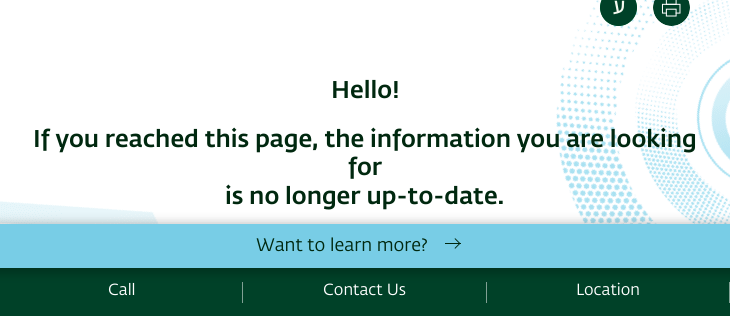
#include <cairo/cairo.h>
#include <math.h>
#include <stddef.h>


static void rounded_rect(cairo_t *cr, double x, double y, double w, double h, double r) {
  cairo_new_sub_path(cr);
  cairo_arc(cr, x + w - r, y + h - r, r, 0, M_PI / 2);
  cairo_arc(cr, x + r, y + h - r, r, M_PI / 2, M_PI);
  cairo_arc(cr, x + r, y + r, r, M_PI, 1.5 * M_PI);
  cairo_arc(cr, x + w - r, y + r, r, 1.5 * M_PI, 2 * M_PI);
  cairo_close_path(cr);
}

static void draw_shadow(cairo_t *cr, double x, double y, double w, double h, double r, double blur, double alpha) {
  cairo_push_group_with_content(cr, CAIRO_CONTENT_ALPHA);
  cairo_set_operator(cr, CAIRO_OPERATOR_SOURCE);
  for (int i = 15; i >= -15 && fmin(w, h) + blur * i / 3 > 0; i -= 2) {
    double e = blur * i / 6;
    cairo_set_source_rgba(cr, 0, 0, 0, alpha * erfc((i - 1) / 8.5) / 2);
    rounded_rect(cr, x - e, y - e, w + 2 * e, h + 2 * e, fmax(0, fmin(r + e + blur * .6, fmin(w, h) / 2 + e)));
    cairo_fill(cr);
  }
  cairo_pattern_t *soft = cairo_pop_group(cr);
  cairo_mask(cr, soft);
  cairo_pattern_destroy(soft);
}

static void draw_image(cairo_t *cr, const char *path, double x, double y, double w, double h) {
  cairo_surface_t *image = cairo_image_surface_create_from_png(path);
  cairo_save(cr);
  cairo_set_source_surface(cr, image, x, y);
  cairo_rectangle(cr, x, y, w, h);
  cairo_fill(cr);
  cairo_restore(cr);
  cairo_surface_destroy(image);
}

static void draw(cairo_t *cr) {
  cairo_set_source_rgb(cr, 1, 1, 1);
  cairo_paint(cr);
  draw_image(cr, "images/1.png", 556, 0, 174, 224);
  cairo_set_source_rgb(cr, 0, 105 / 255.0, 55 / 255.0);
  cairo_arc(cr, 618.5, 7.5, 18.5, 0, 2 * M_PI);
  cairo_fill(cr);
  draw_image(cr, "images/2.png", 600, 0, 37, 26);
  draw_image(cr, "images/3.png", 653, 0, 37, 26);
  draw_image(cr, "images/4.png", 0, 201, 159, 23);
  cairo_set_source_rgb(cr, 0, 65 / 255.0, 40 / 255.0);
  cairo_rectangle(cr, 0, 268, 730, 48);
  cairo_fill(cr);
  cairo_set_source_rgb(cr, 128 / 255.0, 160 / 255.0, 148 / 255.0);
  cairo_rectangle(cr, 242, 282, 1, 21);
  cairo_fill(cr);
  cairo_rectangle(cr, 486, 282, 1, 21);
  cairo_fill(cr);
  cairo_rectangle(cr, 729, 282, 1, 21);
  cairo_fill(cr);
  cairo_set_source_rgb(cr, 0, 0, 0);
  draw_shadow(cr, -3, 223, 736, 50, 0, 5, 0.25);
  cairo_set_source_rgb(cr, 120 / 255.0, 205 / 255.0, 230 / 255.0);
  cairo_rectangle(cr, 0, 224, 730, 44);
  cairo_fill(cr);
  cairo_set_source_rgb(cr, 0, 40 / 255.0, 15 / 255.0);
  cairo_rectangle(cr, 445, 243, 16, 1);
  cairo_fill(cr);
  draw_image(cr, "images/5.png", 454, 238, 6, 11);
  cairo_select_font_face(cr, "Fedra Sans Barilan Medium", CAIRO_FONT_SLANT_NORMAL, CAIRO_FONT_WEIGHT_NORMAL);
  cairo_set_font_size(cr, 24);
  cairo_move_to(cr, 331, 98);
  cairo_show_text(cr, "Hello!");
  cairo_move_to(cr, 33, 147);
  cairo_show_text(cr, "If you reached this page, the information you are looking");
  cairo_move_to(cr, 348, 175);
  cairo_show_text(cr, "for");
  cairo_move_to(cr, 225, 204);
  cairo_show_text(cr, "is no longer up-to-date.");
  cairo_select_font_face(cr, "Fedra Sans Barilan", CAIRO_FONT_SLANT_NORMAL, CAIRO_FONT_WEIGHT_NORMAL);
  cairo_set_font_size(cr, 18);
  cairo_move_to(cr, 256, 251);
  cairo_show_text(cr, "Want to learn more?");
  cairo_set_font_size(cr, 16);
  cairo_set_source_rgb(cr, 1, 1, 1);
  cairo_move_to(cr, 108, 295);
  cairo_show_text(cr, "Call");
  cairo_move_to(cr, 323, 295);
  cairo_show_text(cr, "Contact Us");
  cairo_move_to(cr, 576, 295);
  cairo_show_text(cr, "Location");
}

int main(void) {
  cairo_surface_t *surface = cairo_image_surface_create(CAIRO_FORMAT_RGB24, 730, 316);
  cairo_t *cr = cairo_create(surface);
  cairo_font_options_t *options = cairo_font_options_create();
  cairo_font_options_set_hint_metrics(options, CAIRO_HINT_METRICS_OFF);
  cairo_font_options_set_hint_style(options, CAIRO_HINT_STYLE_NONE);
  cairo_set_font_options(cr, options);
  cairo_set_miter_limit(cr, 4);
  draw(cr);
  cairo_surface_write_to_png(surface, "out.png");
  cairo_font_options_destroy(options);
  cairo_destroy(cr);
  cairo_surface_destroy(surface);
  return 0;
}
